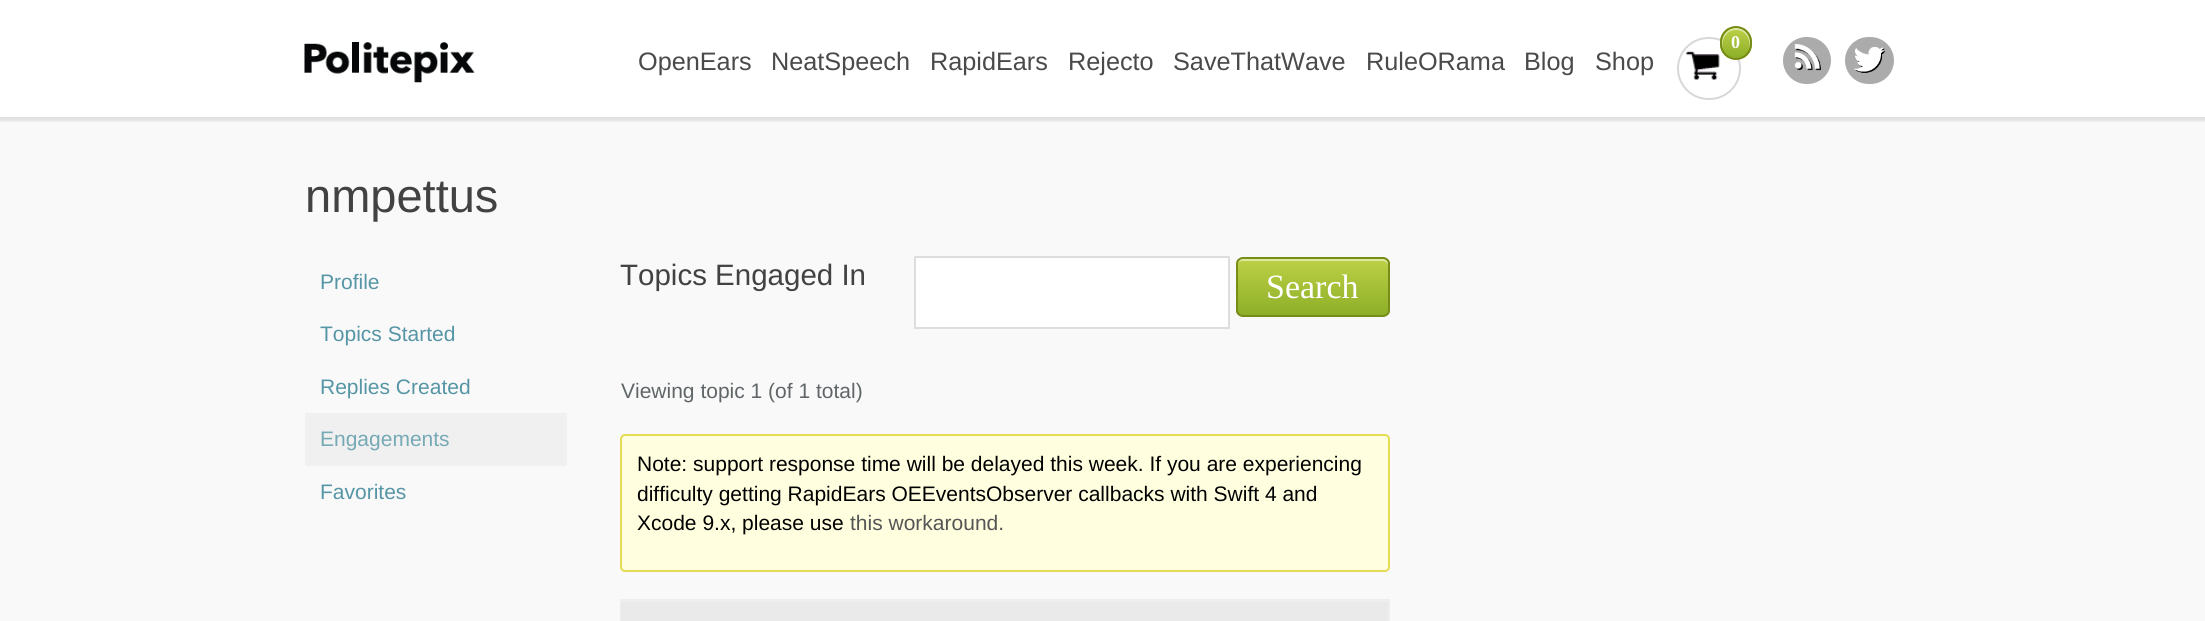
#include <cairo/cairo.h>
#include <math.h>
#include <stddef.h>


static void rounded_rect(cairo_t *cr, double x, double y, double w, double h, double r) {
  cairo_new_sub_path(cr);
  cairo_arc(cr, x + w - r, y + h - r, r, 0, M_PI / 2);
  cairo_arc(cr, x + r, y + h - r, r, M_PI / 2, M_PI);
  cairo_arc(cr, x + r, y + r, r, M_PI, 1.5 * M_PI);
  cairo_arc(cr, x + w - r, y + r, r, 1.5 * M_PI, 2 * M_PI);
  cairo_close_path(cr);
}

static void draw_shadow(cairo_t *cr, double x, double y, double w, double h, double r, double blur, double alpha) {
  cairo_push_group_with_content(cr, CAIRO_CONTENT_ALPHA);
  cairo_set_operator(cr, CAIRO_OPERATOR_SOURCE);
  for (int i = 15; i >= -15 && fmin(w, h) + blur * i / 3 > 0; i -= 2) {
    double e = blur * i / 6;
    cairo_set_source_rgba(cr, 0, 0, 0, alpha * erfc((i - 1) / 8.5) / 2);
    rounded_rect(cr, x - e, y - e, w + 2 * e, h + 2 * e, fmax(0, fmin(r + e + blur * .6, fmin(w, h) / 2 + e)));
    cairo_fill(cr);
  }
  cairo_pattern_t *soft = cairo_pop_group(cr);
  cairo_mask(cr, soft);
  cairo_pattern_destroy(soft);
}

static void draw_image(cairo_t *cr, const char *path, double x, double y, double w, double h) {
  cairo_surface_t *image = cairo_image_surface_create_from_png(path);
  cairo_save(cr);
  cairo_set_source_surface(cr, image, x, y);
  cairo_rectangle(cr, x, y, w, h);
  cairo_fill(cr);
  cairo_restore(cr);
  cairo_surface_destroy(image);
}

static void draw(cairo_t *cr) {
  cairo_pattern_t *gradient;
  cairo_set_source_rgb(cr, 249 / 255.0, 249 / 255.0, 249 / 255.0);
  cairo_paint(cr);
  cairo_set_source_rgb(cr, 0, 0, 0);
  draw_shadow(cr, -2, 0, 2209, 121, 0, 1, 0.1);
  cairo_set_source_rgb(cr, 1, 1, 1);
  cairo_rectangle(cr, 0, 0, 2205, 117);
  cairo_fill(cr);
  draw_image(cr, "images/1.png", 304, 42, 171, 41);
  draw_image(cr, "images/2.png", 1686, 51, 34, 29);
  rounded_rect(cr, 1678, 38, 62, 61, 30.5);
  cairo_set_source_rgb(cr, 216 / 255.0, 216 / 255.0, 216 / 255.0);
  cairo_stroke(cr);
  cairo_save(cr);
  rounded_rect(cr, 1720, 26, 32, 34, 16);
  cairo_clip(cr);
  gradient = cairo_pattern_create_linear(1736, 28, 1736, 58);
  cairo_pattern_add_color_stop_rgba(gradient, 0, 189 / 255.0, 209 / 255.0, 70 / 255.0, 1);
  cairo_pattern_add_color_stop_rgba(gradient, 1, 141 / 255.0, 175 / 255.0, 40 / 255.0, 1);
  cairo_set_source(cr, gradient);
  cairo_pattern_destroy(gradient);
  cairo_rectangle(cr, 1720, 28, 32, 30);
  cairo_fill(cr);
  cairo_restore(cr);
  cairo_set_source_rgba(cr, 1, 1, 1, 0.5);
  cairo_new_path(cr);
  cairo_move_to(cr, 1736, 30);
  cairo_curve_to(cr, 1746.5, 30, 1751, 40.5, 1749, 49);
  cairo_curve_to(cr, 1750.5, 45.5, 1750.5, 40, 1749, 36.5);
  cairo_curve_to(cr, 1743, 22, 1722, 26.5, 1722, 43);
  cairo_curve_to(cr, 1722, 45, 1722, 47, 1723, 49);
  cairo_curve_to(cr, 1721, 40.5, 1725.5, 30, 1736, 30);
  cairo_close_path(cr);
  cairo_fill(cr);
  rounded_rect(cr, 1721, 27, 30, 32, 15);
  cairo_set_source_rgb(cr, 119 / 255.0, 141 / 255.0, 24 / 255.0);
  cairo_stroke(cr);
  cairo_set_source_rgb(cr, 171 / 255.0, 171 / 255.0, 171 / 255.0);
  rounded_rect(cr, 1783, 37, 48, 47, 23.5);
  cairo_fill(cr);
  draw_image(cr, "images/3.png", 1794, 44, 27, 27);
  rounded_rect(cr, 1845, 37, 49, 47, 23.5);
  cairo_fill(cr);
  draw_image(cr, "images/4.png", 1854, 47, 32, 26);
  cairo_set_source_rgb(cr, 240 / 255.0, 240 / 255.0, 240 / 255.0);
  cairo_rectangle(cr, 305, 413, 262, 53);
  cairo_fill(cr);
  cairo_set_source_rgb(cr, 1, 1, 1);
  cairo_rectangle(cr, 915, 257, 314, 71);
  cairo_fill_preserve(cr);
  cairo_set_source_rgb(cr, 221 / 255.0, 221 / 255.0, 221 / 255.0);
  cairo_stroke(cr);
  cairo_save(cr);
  rounded_rect(cr, 1236, 257, 154, 60, 7);
  cairo_clip(cr);
  gradient = cairo_pattern_create_linear(1313, 259, 1313, 315);
  cairo_pattern_add_color_stop_rgba(gradient, 0, 189 / 255.0, 209 / 255.0, 70 / 255.0, 1);
  cairo_pattern_add_color_stop_rgba(gradient, 1, 141 / 255.0, 175 / 255.0, 40 / 255.0, 1);
  cairo_set_source(cr, gradient);
  cairo_pattern_destroy(gradient);
  cairo_rectangle(cr, 1236, 259, 154, 56);
  cairo_fill(cr);
  cairo_restore(cr);
  cairo_set_source_rgba(cr, 1, 1, 1, 0.5);
  cairo_new_path(cr);
  cairo_move_to(cr, 1242, 261);
  cairo_line_to(cr, 1383, 261);
  cairo_curve_to(cr, 1385, 261, 1388, 263, 1388, 266);
  cairo_line_to(cr, 1388, 264);
  cairo_curve_to(cr, 1388, 261, 1386, 259, 1383, 259);
  cairo_line_to(cr, 1242, 259);
  cairo_curve_to(cr, 1239, 259, 1237, 261, 1237, 264);
  cairo_line_to(cr, 1237, 266);
  cairo_curve_to(cr, 1237, 263, 1240, 261, 1242, 261);
  cairo_close_path(cr);
  cairo_fill(cr);
  rounded_rect(cr, 1237, 258, 152, 58, 6);
  cairo_set_source_rgb(cr, 119 / 255.0, 141 / 255.0, 24 / 255.0);
  cairo_stroke(cr);
  cairo_set_source_rgb(cr, 1, 1, 224 / 255.0);
  rounded_rect(cr, 621, 435, 768, 136, 4);
  cairo_fill_preserve(cr);
  cairo_set_source_rgb(cr, 230 / 255.0, 219 / 255.0, 85 / 255.0);
  cairo_stroke(cr);
  cairo_rectangle(cr, 621, 600, 768, 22);
  cairo_set_source_rgb(cr, 238 / 255.0, 238 / 255.0, 238 / 255.0);
  cairo_stroke(cr);
  cairo_set_source_rgb(cr, 234 / 255.0, 234 / 255.0, 234 / 255.0);
  cairo_rectangle(cr, 621, 602, 767, 19);
  cairo_fill(cr);
  cairo_set_source_rgb(cr, 238 / 255.0, 238 / 255.0, 238 / 255.0);
  cairo_rectangle(cr, 621, 601, 767, 1);
  cairo_fill(cr);
  cairo_select_font_face(cr, "Liberation Serif", CAIRO_FONT_SLANT_NORMAL, CAIRO_FONT_WEIGHT_BOLD);
  cairo_set_font_size(cr, 18);
  cairo_set_source_rgb(cr, 1, 1, 1);
  cairo_move_to(cr, 1731, 48);
  cairo_show_text(cr, "0");
  cairo_select_font_face(cr, "Liberation Sans", CAIRO_FONT_SLANT_NORMAL, CAIRO_FONT_WEIGHT_NORMAL);
  cairo_set_font_size(cr, 25.25);
  cairo_set_source_rgb(cr, 74 / 255.0, 74 / 255.0, 74 / 255.0);
  cairo_move_to(cr, 638, 70);
  cairo_show_text(cr, "OpenEars");
  cairo_move_to(cr, 771, 70);
  cairo_show_text(cr, "NeatSpeech");
  cairo_move_to(cr, 930, 70);
  cairo_show_text(cr, "RapidEars");
  cairo_move_to(cr, 1068, 70);
  cairo_show_text(cr, "Rejecto");
  cairo_move_to(cr, 1173, 70);
  cairo_show_text(cr, "SaveThatWave");
  cairo_move_to(cr, 1366, 70);
  cairo_show_text(cr, "RuleORama");
  cairo_move_to(cr, 1524, 70);
  cairo_show_text(cr, "Blog");
  cairo_move_to(cr, 1595, 70);
  cairo_show_text(cr, "Shop");
  cairo_set_font_size(cr, 47);
  cairo_set_source_rgb(cr, 66 / 255.0, 66 / 255.0, 66 / 255.0);
  cairo_move_to(cr, 305, 212);
  cairo_show_text(cr, "nmpettus");
  cairo_set_font_size(cr, 21);
  cairo_set_source_rgb(cr, 85 / 255.0, 149 / 255.0, 165 / 255.0);
  cairo_move_to(cr, 320, 289);
  cairo_show_text(cr, "Profile");
  cairo_move_to(cr, 320, 341);
  cairo_show_text(cr, "Topics Started");
  cairo_move_to(cr, 320, 394);
  cairo_show_text(cr, "Replies Created");
  cairo_set_source_rgb(cr, 118 / 255.0, 169 / 255.0, 182 / 255.0);
  cairo_move_to(cr, 320, 446);
  cairo_show_text(cr, "Engagements");
  cairo_set_source_rgb(cr, 85 / 255.0, 149 / 255.0, 165 / 255.0);
  cairo_move_to(cr, 320, 499);
  cairo_show_text(cr, "Favorites");
  cairo_set_font_size(cr, 29.5);
  cairo_set_source_rgb(cr, 66 / 255.0, 66 / 255.0, 66 / 255.0);
  cairo_move_to(cr, 620, 285);
  cairo_show_text(cr, "Topics Engaged In");
  cairo_select_font_face(cr, "Liberation Serif", CAIRO_FONT_SLANT_NORMAL, CAIRO_FONT_WEIGHT_NORMAL);
  cairo_set_font_size(cr, 34);
  cairo_set_source_rgb(cr, 1, 1, 1);
  cairo_move_to(cr, 1266, 298);
  cairo_show_text(cr, "Search");
  cairo_select_font_face(cr, "Liberation Sans", CAIRO_FONT_SLANT_NORMAL, CAIRO_FONT_WEIGHT_NORMAL);
  cairo_set_font_size(cr, 21);
  cairo_set_source_rgb(cr, 96 / 255.0, 102 / 255.0, 104 / 255.0);
  cairo_move_to(cr, 621, 398);
  cairo_show_text(cr, "Viewing topic 1 (of 1 total)");
  cairo_set_source_rgb(cr, 0, 0, 0);
  cairo_move_to(cr, 637, 471);
  cairo_show_text(cr, "Note: support response time will be delayed this week. If you are experiencing");
  cairo_move_to(cr, 637, 501);
  cairo_show_text(cr, "difficulty getting RapidEars OEEventsObserver callbacks with Swift 4 and");
  cairo_move_to(cr, 637, 530);
  cairo_show_text(cr, "Xcode 9.x, please use");
  cairo_set_source_rgb(cr, 85 / 255.0, 85 / 255.0, 85 / 255.0);
  cairo_move_to(cr, 850, 530);
  cairo_show_text(cr, "this workaround.");
}

int main(void) {
  cairo_surface_t *surface = cairo_image_surface_create(CAIRO_FORMAT_RGB24, 2205, 621);
  cairo_t *cr = cairo_create(surface);
  cairo_font_options_t *options = cairo_font_options_create();
  cairo_font_options_set_hint_metrics(options, CAIRO_HINT_METRICS_OFF);
  cairo_font_options_set_hint_style(options, CAIRO_HINT_STYLE_NONE);
  cairo_set_font_options(cr, options);
  cairo_set_miter_limit(cr, 4);
  draw(cr);
  cairo_surface_write_to_png(surface, "out.png");
  cairo_font_options_destroy(options);
  cairo_destroy(cr);
  cairo_surface_destroy(surface);
  return 0;
}
